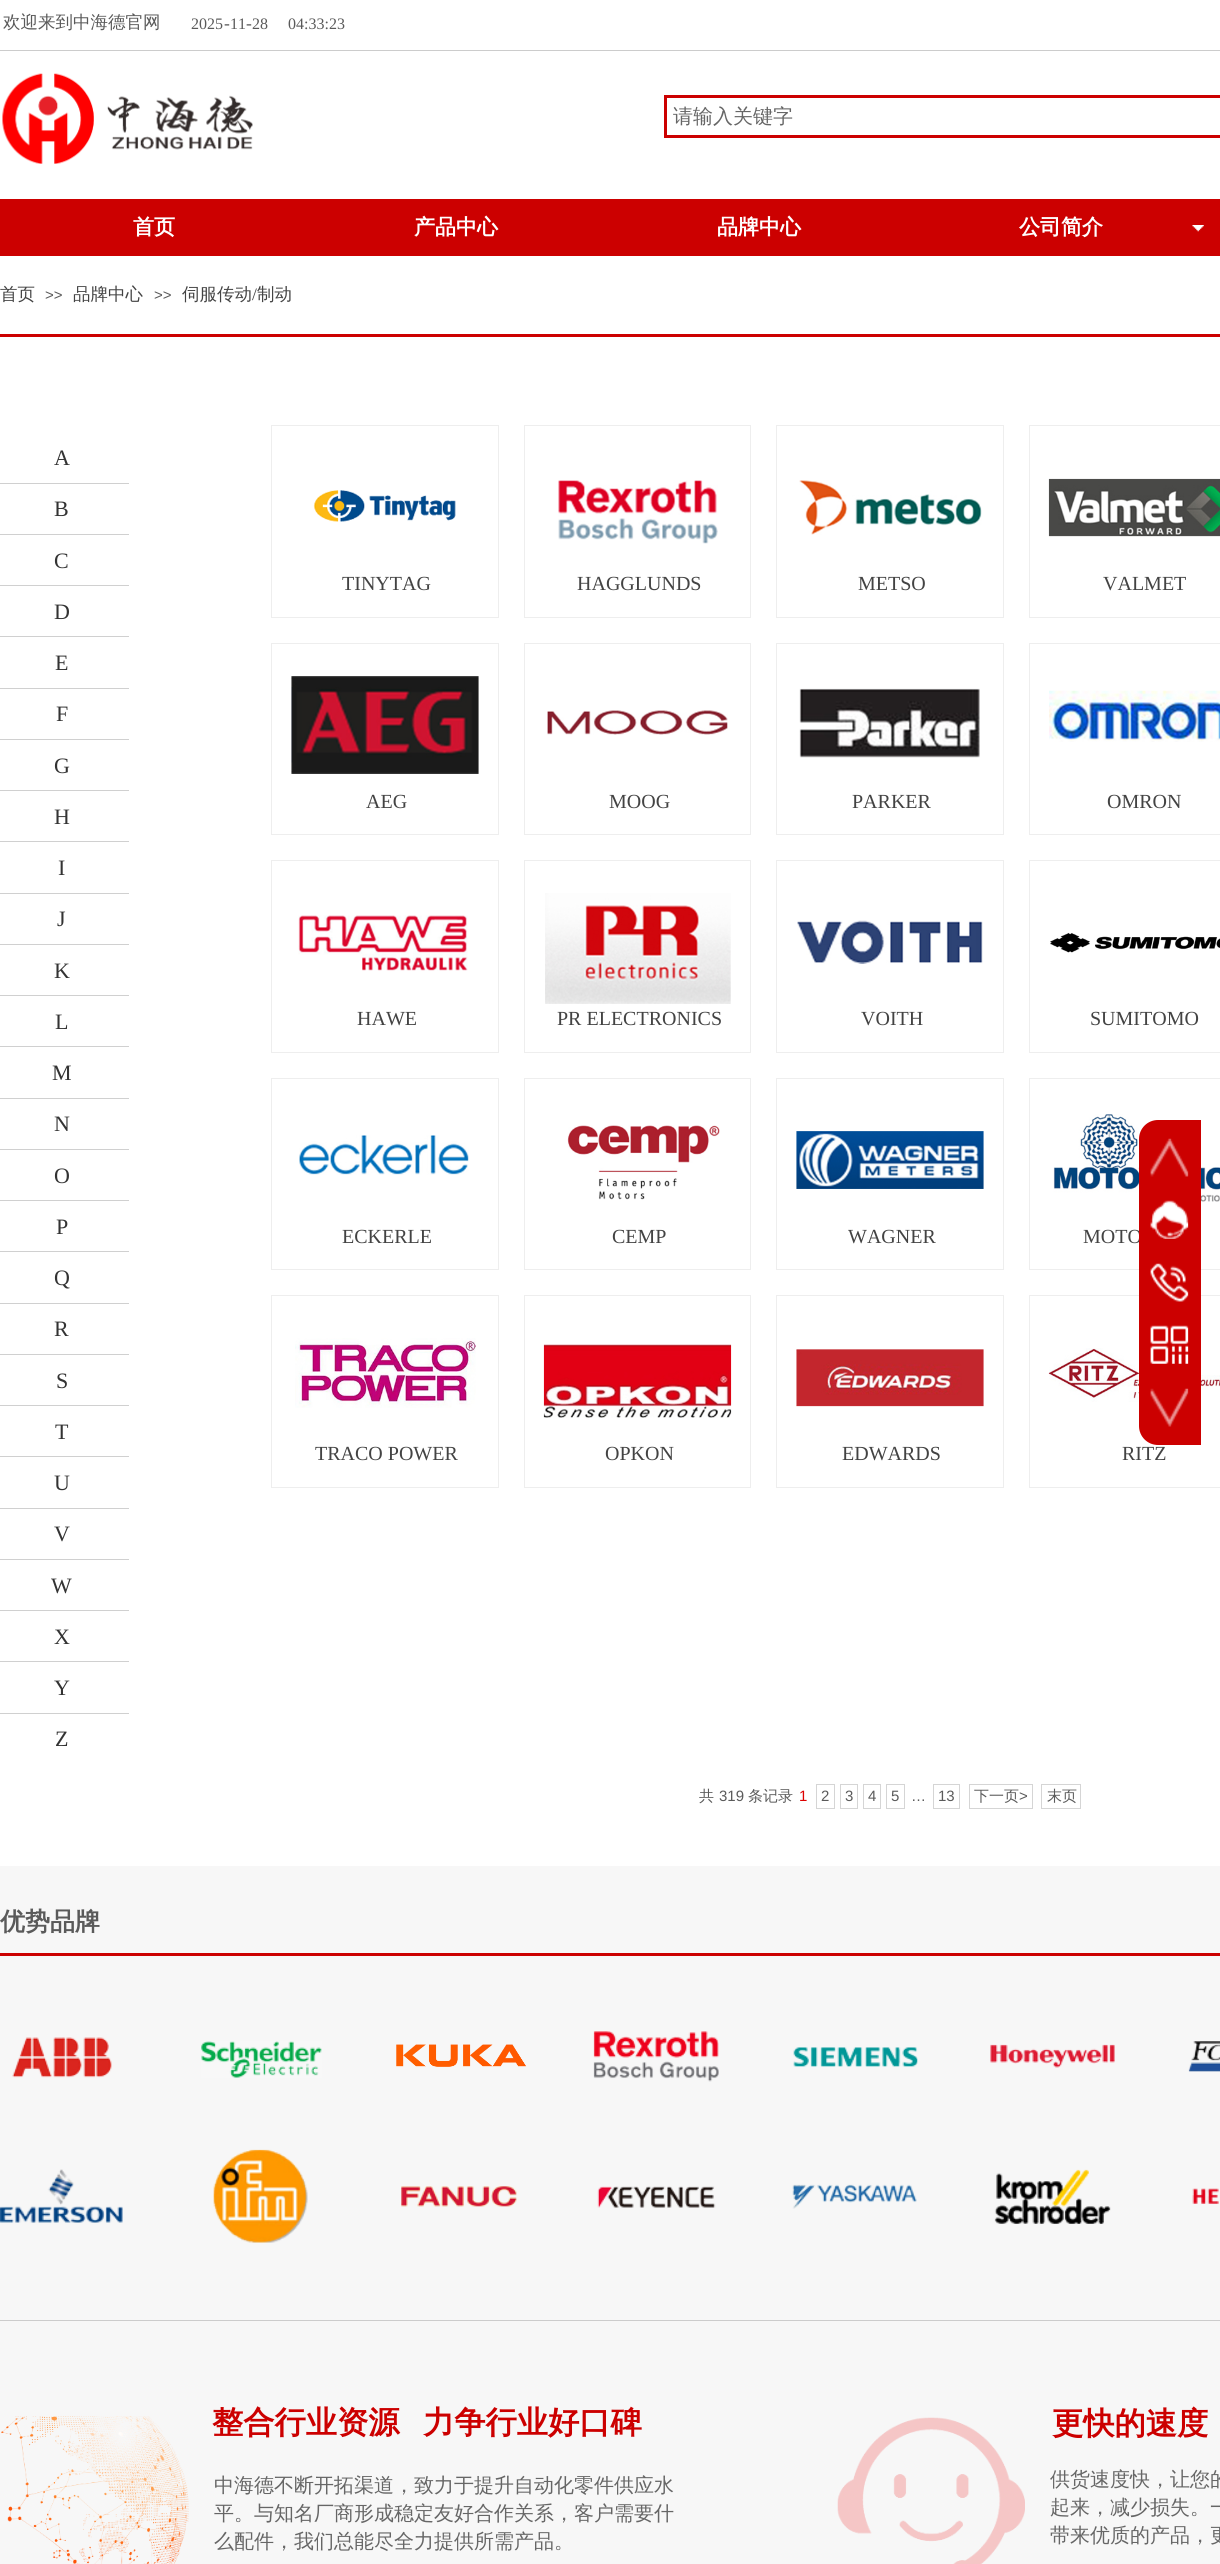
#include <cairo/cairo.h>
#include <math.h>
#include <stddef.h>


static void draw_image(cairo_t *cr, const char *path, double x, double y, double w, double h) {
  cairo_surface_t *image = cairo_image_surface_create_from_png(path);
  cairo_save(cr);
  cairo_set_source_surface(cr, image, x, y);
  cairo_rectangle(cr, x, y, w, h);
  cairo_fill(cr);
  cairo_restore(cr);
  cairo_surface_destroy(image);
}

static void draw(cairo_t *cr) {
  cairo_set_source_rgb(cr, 1, 1, 1);
  cairo_paint(cr);
  cairo_set_source_rgb(cr, 204 / 255.0, 204 / 255.0, 204 / 255.0);
  cairo_rectangle(cr, 0, 50, 1220, 1);
  cairo_fill(cr);
  draw_image(cr, "images/1.png", 2, 73, 251, 91);
  cairo_rectangle(cr, 665.5, 96.5, 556, 40);
  cairo_set_source_rgb(cr, 204 / 255.0, 0, 0);
  cairo_set_line_width(cr, 3);
  cairo_stroke(cr);
  cairo_rectangle(cr, 0, 199, 1220, 57);
  cairo_fill(cr);
  draw_image(cr, "images/2.png", 1192, 225, 12, 7);
  cairo_rectangle(cr, 0, 334, 1220, 3);
  cairo_fill(cr);
  cairo_set_source_rgb(cr, 208 / 255.0, 208 / 255.0, 208 / 255.0);
  cairo_rectangle(cr, 0, 483, 129, 1);
  cairo_fill(cr);
  cairo_rectangle(cr, 0, 534, 129, 1);
  cairo_fill(cr);
  cairo_rectangle(cr, 0, 585, 129, 1);
  cairo_fill(cr);
  cairo_rectangle(cr, 0, 636, 129, 1);
  cairo_fill(cr);
  cairo_rectangle(cr, 0, 688, 129, 1);
  cairo_fill(cr);
  cairo_rectangle(cr, 0, 739, 129, 1);
  cairo_fill(cr);
  cairo_rectangle(cr, 0, 790, 129, 1);
  cairo_fill(cr);
  cairo_rectangle(cr, 0, 841, 129, 1);
  cairo_fill(cr);
  cairo_rectangle(cr, 0, 893, 129, 1);
  cairo_fill(cr);
  cairo_rectangle(cr, 0, 944, 129, 1);
  cairo_fill(cr);
  cairo_rectangle(cr, 0, 995, 129, 1);
  cairo_fill(cr);
  cairo_rectangle(cr, 0, 1046, 129, 1);
  cairo_fill(cr);
  cairo_rectangle(cr, 0, 1098, 129, 1);
  cairo_fill(cr);
  cairo_rectangle(cr, 0, 1149, 129, 1);
  cairo_fill(cr);
  cairo_rectangle(cr, 0, 1200, 129, 1);
  cairo_fill(cr);
  cairo_rectangle(cr, 0, 1251, 129, 1);
  cairo_fill(cr);
  cairo_rectangle(cr, 0, 1303, 129, 1);
  cairo_fill(cr);
  cairo_rectangle(cr, 0, 1354, 129, 1);
  cairo_fill(cr);
  cairo_rectangle(cr, 0, 1405, 129, 1);
  cairo_fill(cr);
  cairo_rectangle(cr, 0, 1456, 129, 1);
  cairo_fill(cr);
  cairo_rectangle(cr, 0, 1508, 129, 1);
  cairo_fill(cr);
  cairo_rectangle(cr, 0, 1559, 129, 1);
  cairo_fill(cr);
  cairo_rectangle(cr, 0, 1610, 129, 1);
  cairo_fill(cr);
  cairo_rectangle(cr, 0, 1661, 129, 1);
  cairo_fill(cr);
  cairo_rectangle(cr, 0, 1713, 129, 1);
  cairo_fill(cr);
  cairo_rectangle(cr, 271.5, 425.5, 227, 192);
  cairo_set_source_rgb(cr, 238 / 255.0, 238 / 255.0, 238 / 255.0);
  cairo_set_line_width(cr, 1);
  cairo_stroke(cr);
  draw_image(cr, "images/3.png", 313, 490, 143, 32);
  cairo_rectangle(cr, 524.5, 425.5, 226, 192);
  cairo_stroke(cr);
  draw_image(cr, "images/4.png", 558, 480, 160, 64);
  cairo_rectangle(cr, 776.5, 425.5, 227, 192);
  cairo_stroke(cr);
  draw_image(cr, "images/5.png", 799, 480, 183, 55);
  cairo_rectangle(cr, 1029.5, 425.5, 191, 192);
  cairo_stroke(cr);
  draw_image(cr, "images/6.png", 1048, 478, 172, 59);
  cairo_rectangle(cr, 271.5, 643.5, 227, 191);
  cairo_stroke(cr);
  draw_image(cr, "images/7.png", 291, 676, 188, 98);
  cairo_rectangle(cr, 524.5, 643.5, 226, 191);
  cairo_stroke(cr);
  draw_image(cr, "images/8.png", 547, 710, 181, 25);
  cairo_rectangle(cr, 776.5, 643.5, 227, 191);
  cairo_stroke(cr);
  draw_image(cr, "images/9.png", 799, 688, 181, 70);
  cairo_rectangle(cr, 1029.5, 643.5, 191, 191);
  cairo_stroke(cr);
  draw_image(cr, "images/10.png", 1049, 690, 171, 52);
  cairo_rectangle(cr, 271.5, 860.5, 227, 192);
  cairo_stroke(cr);
  draw_image(cr, "images/11.png", 298, 915, 170, 56);
  cairo_rectangle(cr, 524.5, 860.5, 226, 192);
  cairo_stroke(cr);
  draw_image(cr, "images/12.png", 545, 893, 186, 111);
  cairo_rectangle(cr, 776.5, 860.5, 227, 192);
  cairo_stroke(cr);
  draw_image(cr, "images/13.png", 797, 920, 186, 44);
  cairo_rectangle(cr, 1029.5, 860.5, 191, 192);
  cairo_stroke(cr);
  draw_image(cr, "images/14.png", 1050, 932, 170, 21);
  cairo_rectangle(cr, 271.5, 1078.5, 227, 191);
  cairo_stroke(cr);
  draw_image(cr, "images/15.png", 299, 1135, 170, 40);
  cairo_rectangle(cr, 524.5, 1078.5, 226, 191);
  cairo_stroke(cr);
  draw_image(cr, "images/16.png", 567, 1125, 153, 75);
  cairo_rectangle(cr, 776.5, 1078.5, 227, 191);
  cairo_stroke(cr);
  draw_image(cr, "images/17.png", 796, 1131, 188, 58);
  cairo_rectangle(cr, 1029.5, 1078.5, 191, 191);
  cairo_stroke(cr);
  draw_image(cr, "images/18.png", 1053, 1114, 167, 88);
  cairo_rectangle(cr, 271.5, 1295.5, 227, 192);
  cairo_stroke(cr);
  draw_image(cr, "images/19.png", 295, 1338, 181, 70);
  cairo_rectangle(cr, 524.5, 1295.5, 226, 192);
  cairo_stroke(cr);
  draw_image(cr, "images/20.png", 543, 1344, 189, 74);
  cairo_rectangle(cr, 776.5, 1295.5, 227, 192);
  cairo_stroke(cr);
  draw_image(cr, "images/21.png", 796, 1349, 188, 58);
  cairo_rectangle(cr, 1029.5, 1295.5, 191, 192);
  cairo_stroke(cr);
  draw_image(cr, "images/22.png", 1048, 1348, 172, 54);
  cairo_rectangle(cr, 816.5, 1784.5, 18, 24);
  cairo_set_source_rgb(cr, 213 / 255.0, 213 / 255.0, 213 / 255.0);
  cairo_stroke(cr);
  cairo_rectangle(cr, 840.5, 1784.5, 17, 24);
  cairo_stroke(cr);
  cairo_rectangle(cr, 863.5, 1784.5, 17, 24);
  cairo_stroke(cr);
  cairo_rectangle(cr, 886.5, 1784.5, 18, 24);
  cairo_stroke(cr);
  cairo_rectangle(cr, 933.5, 1784.5, 26, 24);
  cairo_stroke(cr);
  cairo_rectangle(cr, 969.5, 1784.5, 63, 24);
  cairo_stroke(cr);
  cairo_rectangle(cr, 1041.5, 1784.5, 39, 24);
  cairo_stroke(cr);
  cairo_set_source_rgb(cr, 247 / 255.0, 247 / 255.0, 247 / 255.0);
  cairo_rectangle(cr, 0, 1866, 1220, 698);
  cairo_fill(cr);
  cairo_set_source_rgb(cr, 204 / 255.0, 0, 0);
  cairo_rectangle(cr, 0, 1953, 1220, 3);
  cairo_fill(cr);
  draw_image(cr, "images/23.png", 12, 2037, 100, 41);
  draw_image(cr, "images/24.png", 201, 2041, 121, 37);
  draw_image(cr, "images/25.png", 396, 2044, 131, 23);
  draw_image(cr, "images/26.png", 593, 2031, 126, 51);
  draw_image(cr, "images/27.png", 793, 2047, 125, 20);
  draw_image(cr, "images/28.png", 990, 2044, 125, 24);
  draw_image(cr, "images/29.png", 1188, 2041, 32, 31);
  draw_image(cr, "images/30.png", 0, 2169, 123, 54);
  draw_image(cr, "images/31.png", 213, 2149, 95, 94);
  draw_image(cr, "images/32.png", 401, 2186, 116, 21);
  draw_image(cr, "images/33.png", 597, 2186, 119, 22);
  draw_image(cr, "images/34.png", 792, 2184, 125, 25);
  draw_image(cr, "images/35.png", 994, 2169, 117, 55);
  draw_image(cr, "images/36.png", 1192, 2188, 27, 16);
  cairo_set_source_rgb(cr, 204 / 255.0, 204 / 255.0, 204 / 255.0);
  cairo_rectangle(cr, 0, 2320, 1220, 1);
  cairo_fill(cr);
  draw_image(cr, "images/37.png", 1, 2416, 188, 148);
  draw_image(cr, "images/38.png", 837, 2417, 188, 147);
  cairo_select_font_face(cr, "WenQuanYi Zen Hei Medium", CAIRO_FONT_SLANT_NORMAL, CAIRO_FONT_WEIGHT_NORMAL);
  cairo_set_font_size(cr, 17.5);
  cairo_set_source_rgb(cr, 90 / 255.0, 90 / 255.0, 90 / 255.0);
  cairo_move_to(cr, 3, 28);
  cairo_show_text(cr, "欢迎来到中海德官网");
  cairo_select_font_face(cr, "Liberation Serif", CAIRO_FONT_SLANT_NORMAL, CAIRO_FONT_WEIGHT_NORMAL);
  cairo_set_font_size(cr, 16);
  cairo_move_to(cr, 191, 29);
  cairo_show_text(cr, "2025");
  cairo_set_font_size(cr, 17.5);
  cairo_move_to(cr, 224, 29);
  cairo_show_text(cr, "-");
  cairo_set_font_size(cr, 16);
  cairo_move_to(cr, 230, 29);
  cairo_show_text(cr, "11");
  cairo_set_font_size(cr, 17.5);
  cairo_move_to(cr, 246, 29);
  cairo_show_text(cr, "-");
  cairo_set_font_size(cr, 16);
  cairo_move_to(cr, 252, 29);
  cairo_show_text(cr, "28");
  cairo_move_to(cr, 288, 29);
  cairo_show_text(cr, "04:33:23");
  cairo_select_font_face(cr, "WenQuanYi Zen Hei Medium", CAIRO_FONT_SLANT_NORMAL, CAIRO_FONT_WEIGHT_NORMAL);
  cairo_set_font_size(cr, 20);
  cairo_set_source_rgb(cr, 102 / 255.0, 102 / 255.0, 102 / 255.0);
  cairo_move_to(cr, 673, 123);
  cairo_show_text(cr, "请输入关键字");
  cairo_select_font_face(cr, "WenQuanYi Zen Hei", CAIRO_FONT_SLANT_NORMAL, CAIRO_FONT_WEIGHT_BOLD);
  cairo_set_font_size(cr, 21);
  cairo_set_source_rgb(cr, 1, 1, 1);
  cairo_move_to(cr, 133, 234);
  cairo_show_text(cr, "首页");
  cairo_move_to(cr, 414, 234);
  cairo_show_text(cr, "产品中心");
  cairo_move_to(cr, 717, 234);
  cairo_show_text(cr, "品牌中心");
  cairo_move_to(cr, 1019, 234);
  cairo_show_text(cr, "公司简介");
  cairo_select_font_face(cr, "WenQuanYi Zen Hei Medium", CAIRO_FONT_SLANT_NORMAL, CAIRO_FONT_WEIGHT_NORMAL);
  cairo_set_font_size(cr, 17.5);
  cairo_set_source_rgb(cr, 67 / 255.0, 67 / 255.0, 67 / 255.0);
  cairo_move_to(cr, 0, 300);
  cairo_show_text(cr, "首页");
  cairo_select_font_face(cr, "Liberation Sans", CAIRO_FONT_SLANT_NORMAL, CAIRO_FONT_WEIGHT_NORMAL);
  cairo_set_font_size(cr, 15);
  cairo_set_source_rgb(cr, 90 / 255.0, 90 / 255.0, 90 / 255.0);
  cairo_move_to(cr, 45, 300);
  cairo_show_text(cr, ">>");
  cairo_select_font_face(cr, "WenQuanYi Zen Hei Medium", CAIRO_FONT_SLANT_NORMAL, CAIRO_FONT_WEIGHT_NORMAL);
  cairo_set_font_size(cr, 17.5);
  cairo_set_source_rgb(cr, 67 / 255.0, 67 / 255.0, 67 / 255.0);
  cairo_move_to(cr, 73, 300);
  cairo_show_text(cr, "品牌中心");
  cairo_select_font_face(cr, "Liberation Sans", CAIRO_FONT_SLANT_NORMAL, CAIRO_FONT_WEIGHT_NORMAL);
  cairo_set_font_size(cr, 15);
  cairo_set_source_rgb(cr, 90 / 255.0, 90 / 255.0, 90 / 255.0);
  cairo_move_to(cr, 154, 300);
  cairo_show_text(cr, ">>");
  cairo_select_font_face(cr, "WenQuanYi Zen Hei Medium", CAIRO_FONT_SLANT_NORMAL, CAIRO_FONT_WEIGHT_NORMAL);
  cairo_set_font_size(cr, 17.5);
  cairo_set_source_rgb(cr, 67 / 255.0, 67 / 255.0, 67 / 255.0);
  cairo_move_to(cr, 182, 300);
  cairo_show_text(cr, "伺服传动");
  cairo_select_font_face(cr, "Liberation Serif", CAIRO_FONT_SLANT_NORMAL, CAIRO_FONT_WEIGHT_NORMAL);
  cairo_move_to(cr, 252, 300);
  cairo_show_text(cr, "/");
  cairo_select_font_face(cr, "WenQuanYi Zen Hei Medium", CAIRO_FONT_SLANT_NORMAL, CAIRO_FONT_WEIGHT_NORMAL);
  cairo_move_to(cr, 257, 300);
  cairo_show_text(cr, "制动");
  cairo_select_font_face(cr, "Liberation Serif", CAIRO_FONT_SLANT_NORMAL, CAIRO_FONT_WEIGHT_NORMAL);
  cairo_set_font_size(cr, 22);
  cairo_set_source_rgb(cr, 51 / 255.0, 51 / 255.0, 51 / 255.0);
  cairo_move_to(cr, 54, 465);
  cairo_show_text(cr, "A");
  cairo_move_to(cr, 54, 516);
  cairo_show_text(cr, "B");
  cairo_move_to(cr, 54, 568);
  cairo_show_text(cr, "C");
  cairo_move_to(cr, 54, 619);
  cairo_show_text(cr, "D");
  cairo_move_to(cr, 55, 670);
  cairo_show_text(cr, "E");
  cairo_move_to(cr, 56, 721);
  cairo_show_text(cr, "F");
  cairo_move_to(cr, 54, 773);
  cairo_show_text(cr, "G");
  cairo_move_to(cr, 54, 824);
  cairo_show_text(cr, "H");
  cairo_move_to(cr, 58, 875);
  cairo_show_text(cr, "I");
  cairo_move_to(cr, 57, 926);
  cairo_show_text(cr, "J");
  cairo_move_to(cr, 54, 978);
  cairo_show_text(cr, "K");
  cairo_move_to(cr, 55, 1029);
  cairo_show_text(cr, "L");
  cairo_move_to(cr, 52, 1080);
  cairo_show_text(cr, "M");
  cairo_move_to(cr, 54, 1131);
  cairo_show_text(cr, "N");
  cairo_move_to(cr, 54, 1183);
  cairo_show_text(cr, "O");
  cairo_move_to(cr, 56, 1234);
  cairo_show_text(cr, "P");
  cairo_move_to(cr, 54, 1285);
  cairo_show_text(cr, "Q");
  cairo_move_to(cr, 54, 1336);
  cairo_show_text(cr, "R");
  cairo_move_to(cr, 56, 1388);
  cairo_show_text(cr, "S");
  cairo_move_to(cr, 55, 1439);
  cairo_show_text(cr, "T");
  cairo_move_to(cr, 54, 1490);
  cairo_show_text(cr, "U");
  cairo_move_to(cr, 54, 1541);
  cairo_show_text(cr, "V");
  cairo_move_to(cr, 51, 1593);
  cairo_show_text(cr, "W");
  cairo_move_to(cr, 54, 1644);
  cairo_show_text(cr, "X");
  cairo_move_to(cr, 54, 1695);
  cairo_show_text(cr, "Y");
  cairo_move_to(cr, 55, 1746);
  cairo_show_text(cr, "Z");
  cairo_set_font_size(cr, 20);
  cairo_set_source_rgb(cr, 67 / 255.0, 67 / 255.0, 67 / 255.0);
  cairo_move_to(cr, 342, 590);
  cairo_show_text(cr, "TINYTAG");
  cairo_move_to(cr, 577, 590);
  cairo_show_text(cr, "HAGGLUNDS");
  cairo_move_to(cr, 858, 590);
  cairo_show_text(cr, "METSO");
  cairo_move_to(cr, 1103, 590);
  cairo_show_text(cr, "VALMET");
  cairo_move_to(cr, 366, 808);
  cairo_show_text(cr, "AEG");
  cairo_move_to(cr, 609, 808);
  cairo_show_text(cr, "MOOG");
  cairo_move_to(cr, 852, 808);
  cairo_show_text(cr, "PARKER");
  cairo_move_to(cr, 1107, 808);
  cairo_show_text(cr, "OMRON");
  cairo_move_to(cr, 357, 1025);
  cairo_show_text(cr, "HAWE");
  cairo_move_to(cr, 557, 1025);
  cairo_show_text(cr, "PR ELECTRONICS");
  cairo_move_to(cr, 861, 1025);
  cairo_show_text(cr, "VOITH");
  cairo_move_to(cr, 1090, 1025);
  cairo_show_text(cr, "SUMITOMO");
  cairo_move_to(cr, 342, 1243);
  cairo_show_text(cr, "ECKERLE");
  cairo_move_to(cr, 612, 1243);
  cairo_show_text(cr, "CEMP");
  cairo_move_to(cr, 848, 1243);
  cairo_show_text(cr, "WAGNER");
  cairo_move_to(cr, 1083, 1243);
  cairo_show_text(cr, "MOTO");
  cairo_move_to(cr, 315, 1460);
  cairo_show_text(cr, "TRACO POWER");
  cairo_move_to(cr, 605, 1460);
  cairo_show_text(cr, "OPKON");
  cairo_move_to(cr, 842, 1460);
  cairo_show_text(cr, "EDWARDS");
  cairo_move_to(cr, 1122, 1460);
  cairo_show_text(cr, "RITZ");
  cairo_select_font_face(cr, "WenQuanYi Zen Hei Medium", CAIRO_FONT_SLANT_NORMAL, CAIRO_FONT_WEIGHT_NORMAL);
  cairo_set_font_size(cr, 15);
  cairo_set_source_rgb(cr, 90 / 255.0, 90 / 255.0, 90 / 255.0);
  cairo_move_to(cr, 699, 1801);
  cairo_show_text(cr, "共");
  cairo_select_font_face(cr, "Liberation Sans", CAIRO_FONT_SLANT_NORMAL, CAIRO_FONT_WEIGHT_NORMAL);
  cairo_move_to(cr, 719, 1801);
  cairo_show_text(cr, "319");
  cairo_select_font_face(cr, "WenQuanYi Zen Hei Medium", CAIRO_FONT_SLANT_NORMAL, CAIRO_FONT_WEIGHT_NORMAL);
  cairo_move_to(cr, 748, 1801);
  cairo_show_text(cr, "条记录");
  cairo_select_font_face(cr, "Liberation Sans", CAIRO_FONT_SLANT_NORMAL, CAIRO_FONT_WEIGHT_NORMAL);
  cairo_set_source_rgb(cr, 221 / 255.0, 0, 0);
  cairo_move_to(cr, 799, 1801);
  cairo_show_text(cr, "1");
  cairo_set_source_rgb(cr, 90 / 255.0, 90 / 255.0, 90 / 255.0);
  cairo_move_to(cr, 821, 1801);
  cairo_show_text(cr, "2");
  cairo_move_to(cr, 845, 1801);
  cairo_show_text(cr, "3");
  cairo_move_to(cr, 868, 1801);
  cairo_show_text(cr, "4");
  cairo_move_to(cr, 891, 1801);
  cairo_show_text(cr, "5");
  cairo_move_to(cr, 911, 1801);
  cairo_show_text(cr, "…");
  cairo_move_to(cr, 938, 1801);
  cairo_show_text(cr, "13");
  cairo_select_font_face(cr, "WenQuanYi Zen Hei Medium", CAIRO_FONT_SLANT_NORMAL, CAIRO_FONT_WEIGHT_NORMAL);
  cairo_move_to(cr, 974, 1801);
  cairo_show_text(cr, "下一页");
  cairo_select_font_face(cr, "Liberation Sans", CAIRO_FONT_SLANT_NORMAL, CAIRO_FONT_WEIGHT_NORMAL);
  cairo_move_to(cr, 1019, 1801);
  cairo_show_text(cr, ">");
  cairo_select_font_face(cr, "WenQuanYi Zen Hei Medium", CAIRO_FONT_SLANT_NORMAL, CAIRO_FONT_WEIGHT_NORMAL);
  cairo_move_to(cr, 1047, 1801);
  cairo_show_text(cr, "末页");
  cairo_select_font_face(cr, "WenQuanYi Zen Hei", CAIRO_FONT_SLANT_NORMAL, CAIRO_FONT_WEIGHT_BOLD);
  cairo_set_font_size(cr, 25);
  cairo_move_to(cr, 0, 1930);
  cairo_show_text(cr, "优势品牌");
  cairo_set_font_size(cr, 31.25);
  cairo_set_source_rgb(cr, 204 / 255.0, 0, 0);
  cairo_move_to(cr, 212, 2433);
  cairo_show_text(cr, "整合行业资源");
  cairo_move_to(cr, 423, 2433);
  cairo_show_text(cr, "力争行业好口碑");
  cairo_select_font_face(cr, "WenQuanYi Zen Hei Medium", CAIRO_FONT_SLANT_NORMAL, CAIRO_FONT_WEIGHT_NORMAL);
  cairo_set_font_size(cr, 20);
  cairo_set_source_rgb(cr, 102 / 255.0, 102 / 255.0, 102 / 255.0);
  cairo_move_to(cr, 214, 2492);
  cairo_show_text(cr, "中海德不断开拓渠道，致力于提升自动化零件供应水");
  cairo_move_to(cr, 214, 2520);
  cairo_show_text(cr, "平。与知名厂商形成稳定友好合作关系，客户需要什");
  cairo_move_to(cr, 214, 2548);
  cairo_show_text(cr, "么配件，我们总能尽全力提供所需产品。");
  cairo_select_font_face(cr, "WenQuanYi Zen Hei", CAIRO_FONT_SLANT_NORMAL, CAIRO_FONT_WEIGHT_BOLD);
  cairo_set_font_size(cr, 31.25);
  cairo_set_source_rgb(cr, 204 / 255.0, 0, 0);
  cairo_move_to(cr, 1052, 2434);
  cairo_show_text(cr, "更快的速度");
  cairo_select_font_face(cr, "WenQuanYi Zen Hei Medium", CAIRO_FONT_SLANT_NORMAL, CAIRO_FONT_WEIGHT_NORMAL);
  cairo_set_font_size(cr, 20);
  cairo_set_source_rgb(cr, 102 / 255.0, 102 / 255.0, 102 / 255.0);
  cairo_move_to(cr, 1050, 2486);
  cairo_show_text(cr, "供货速度快，让您的");
  cairo_move_to(cr, 1050, 2514);
  cairo_show_text(cr, "起来，减少损失。一");
  cairo_move_to(cr, 1050, 2542);
  cairo_show_text(cr, "带来优质的产品，更");
  cairo_set_source_rgb(cr, 204 / 255.0, 0, 0);
  cairo_new_path(cr);
  cairo_move_to(cr, 1158, 1120);
  cairo_line_to(cr, 1201, 1120);
  cairo_line_to(cr, 1201, 1445);
  cairo_line_to(cr, 1158, 1445);
  cairo_curve_to(cr, 1147.5, 1445, 1139, 1436.5, 1139, 1426);
  cairo_line_to(cr, 1139, 1139);
  cairo_curve_to(cr, 1139, 1128.5, 1147.5, 1120, 1158, 1120);
  cairo_close_path(cr);
  cairo_fill(cr);
  draw_image(cr, "images/39.png", 1150, 1138, 39, 39);
  draw_image(cr, "images/40.png", 1150, 1200, 39, 39);
  draw_image(cr, "images/41.png", 1150, 1263, 39, 39);
  draw_image(cr, "images/42.png", 1150, 1325, 39, 39);
  draw_image(cr, "images/43.png", 1150, 1388, 39, 39);
}

int main(void) {
  cairo_surface_t *surface = cairo_image_surface_create(CAIRO_FORMAT_RGB24, 1220, 2564);
  cairo_t *cr = cairo_create(surface);
  cairo_font_options_t *options = cairo_font_options_create();
  cairo_font_options_set_hint_metrics(options, CAIRO_HINT_METRICS_OFF);
  cairo_font_options_set_hint_style(options, CAIRO_HINT_STYLE_NONE);
  cairo_set_font_options(cr, options);
  cairo_set_miter_limit(cr, 4);
  draw(cr);
  cairo_surface_write_to_png(surface, "out.png");
  cairo_font_options_destroy(options);
  cairo_destroy(cr);
  cairo_surface_destroy(surface);
  return 0;
}
